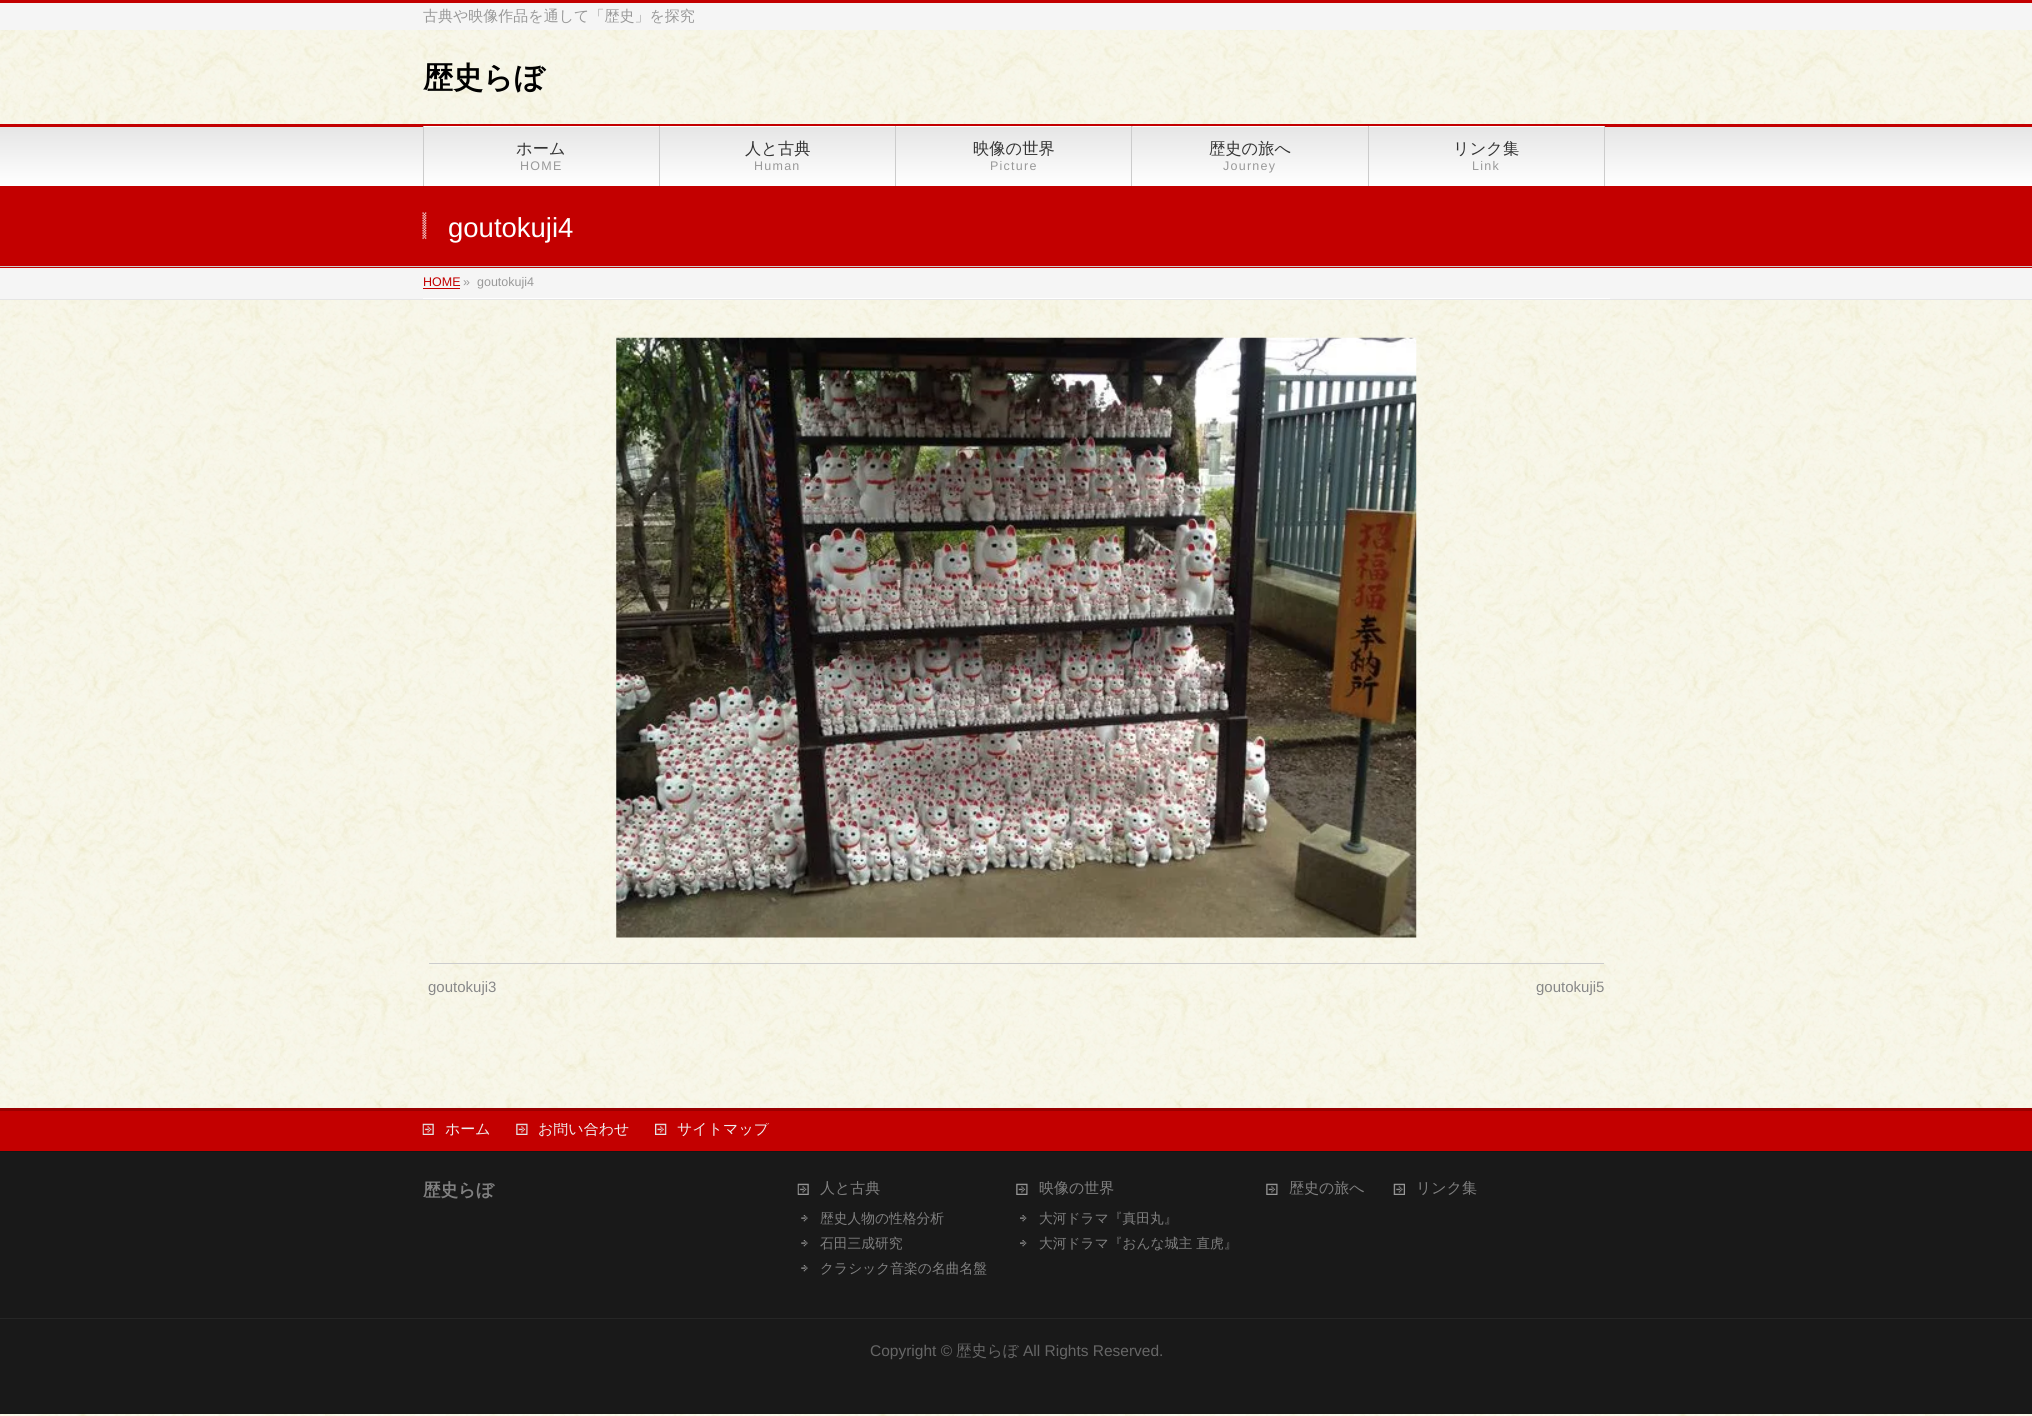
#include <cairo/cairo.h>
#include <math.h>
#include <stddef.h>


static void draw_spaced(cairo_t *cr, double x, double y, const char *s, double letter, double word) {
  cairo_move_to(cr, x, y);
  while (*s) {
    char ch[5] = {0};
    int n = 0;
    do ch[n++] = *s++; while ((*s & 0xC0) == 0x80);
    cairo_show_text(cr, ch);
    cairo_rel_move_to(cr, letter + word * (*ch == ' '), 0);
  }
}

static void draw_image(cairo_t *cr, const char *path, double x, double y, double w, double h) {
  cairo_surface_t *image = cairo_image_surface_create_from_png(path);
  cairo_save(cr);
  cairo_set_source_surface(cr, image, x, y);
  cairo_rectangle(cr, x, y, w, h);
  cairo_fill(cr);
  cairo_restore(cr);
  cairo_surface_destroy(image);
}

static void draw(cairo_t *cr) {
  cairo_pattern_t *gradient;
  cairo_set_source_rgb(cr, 1, 1, 1);
  cairo_paint(cr);
  draw_image(cr, "images/1.png", 0, 30, 2032, 1386);
  cairo_set_source_rgb(cr, 245 / 255.0, 245 / 255.0, 245 / 255.0);
  cairo_rectangle(cr, 0, 3, 2032, 27);
  cairo_fill(cr);
  cairo_set_source_rgb(cr, 195 / 255.0, 0, 0);
  cairo_rectangle(cr, 0, 0, 2032, 3);
  cairo_fill(cr);
  gradient = cairo_pattern_create_linear(1016, 126, 1016, 186);
  cairo_pattern_add_color_stop_rgba(gradient, 0, 229 / 255.0, 229 / 255.0, 229 / 255.0, 1);
  cairo_pattern_add_color_stop_rgba(gradient, 1, 1, 1, 1, 1);
  cairo_set_source(cr, gradient);
  cairo_pattern_destroy(gradient);
  cairo_rectangle(cr, 0, 127, 2032, 59);
  cairo_fill(cr);
  cairo_set_source_rgb(cr, 195 / 255.0, 0, 0);
  cairo_rectangle(cr, 0, 124, 2032, 3);
  cairo_fill(cr);
  cairo_set_source_rgb(cr, 204 / 255.0, 204 / 255.0, 204 / 255.0);
  cairo_rectangle(cr, 423, 126, 1, 60);
  cairo_fill(cr);
  cairo_set_source_rgb(cr, 1, 1, 1);
  cairo_rectangle(cr, 424, 126, 235, 1);
  cairo_fill(cr);
  cairo_set_source_rgb(cr, 204 / 255.0, 204 / 255.0, 204 / 255.0);
  cairo_rectangle(cr, 659, 126, 1, 60);
  cairo_fill(cr);
  cairo_set_source_rgb(cr, 1, 1, 1);
  cairo_rectangle(cr, 660, 126, 235, 1);
  cairo_fill(cr);
  cairo_set_source_rgb(cr, 204 / 255.0, 204 / 255.0, 204 / 255.0);
  cairo_rectangle(cr, 895, 126, 1, 60);
  cairo_fill(cr);
  gradient = cairo_pattern_create_linear(896, 126, 896, 186);
  cairo_pattern_add_color_stop_rgba(gradient, 0, 229 / 255.0, 229 / 255.0, 229 / 255.0, 1);
  cairo_pattern_add_color_stop_rgba(gradient, 1, 1, 1, 1, 1);
  cairo_set_source(cr, gradient);
  cairo_pattern_destroy(gradient);
  cairo_rectangle(cr, 896, 126, 237, 1);
  cairo_fill(cr);
  cairo_set_source_rgb(cr, 1, 1, 1);
  cairo_rectangle(cr, 896, 126, 235, 1);
  cairo_fill(cr);
  cairo_set_source_rgb(cr, 204 / 255.0, 204 / 255.0, 204 / 255.0);
  cairo_rectangle(cr, 1131, 126, 1, 60);
  cairo_fill(cr);
  cairo_set_source_rgb(cr, 1, 1, 1);
  cairo_rectangle(cr, 1133, 126, 235, 1);
  cairo_fill(cr);
  cairo_set_source_rgb(cr, 204 / 255.0, 204 / 255.0, 204 / 255.0);
  cairo_rectangle(cr, 1368, 126, 1, 60);
  cairo_fill(cr);
  cairo_set_source_rgb(cr, 1, 1, 1);
  cairo_rectangle(cr, 1369, 126, 235, 1);
  cairo_fill(cr);
  cairo_set_source_rgb(cr, 204 / 255.0, 204 / 255.0, 204 / 255.0);
  cairo_rectangle(cr, 1604, 126, 1, 60);
  cairo_fill(cr);
  cairo_set_source_rgb(cr, 195 / 255.0, 0, 0);
  cairo_rectangle(cr, 0, 186, 2032, 82);
  cairo_fill(cr);
  cairo_set_source_rgb(cr, 204 / 255.0, 204 / 255.0, 204 / 255.0);
  cairo_rectangle(cr, 0, 266, 2032, 1);
  cairo_fill(cr);
  draw_image(cr, "images/2.png", 422, 212, 5, 27);
  cairo_set_source_rgb(cr, 245 / 255.0, 245 / 255.0, 245 / 255.0);
  cairo_rectangle(cr, 0, 268, 2032, 31);
  cairo_fill(cr);
  cairo_set_source_rgb(cr, 229 / 255.0, 229 / 255.0, 229 / 255.0);
  cairo_rectangle(cr, 0, 299, 2032, 1);
  cairo_fill(cr);
  cairo_set_source_rgb(cr, 1, 1, 1);
  cairo_rectangle(cr, 423, 298, 1187, 1);
  cairo_fill(cr);
  cairo_set_source_rgb(cr, 195 / 255.0, 0, 0);
  cairo_rectangle(cr, 423, 288, 37, 1);
  cairo_fill(cr);
  draw_image(cr, "images/3.png", 616, 337, 801, 601);
  cairo_set_source_rgb(cr, 204 / 255.0, 204 / 255.0, 204 / 255.0);
  cairo_rectangle(cr, 429, 963, 1175, 1);
  cairo_fill(cr);
  cairo_set_source_rgb(cr, 195 / 255.0, 0, 0);
  cairo_rectangle(cr, 0, 1111, 2032, 40);
  cairo_fill(cr);
  cairo_set_source_rgb(cr, 153 / 255.0, 0, 0);
  cairo_rectangle(cr, 0, 1108, 2032, 3);
  cairo_fill(cr);
  draw_image(cr, "images/4.png", 422, 1123, 12, 12);
  draw_image(cr, "images/5.png", 516, 1123, 12, 12);
  draw_image(cr, "images/6.png", 655, 1123, 12, 12);
  cairo_set_source_rgb(cr, 25 / 255.0, 25 / 255.0, 25 / 255.0);
  cairo_rectangle(cr, 0, 1152, 2032, 166);
  cairo_fill(cr);
  cairo_set_source_rgb(cr, 21 / 255.0, 21 / 255.0, 21 / 255.0);
  cairo_rectangle(cr, 0, 1151, 2032, 1);
  cairo_fill(cr);
  draw_image(cr, "images/7.png", 797, 1183, 12, 12);
  draw_image(cr, "images/8.png", 801, 1215, 7, 7);
  draw_image(cr, "images/8.png", 801, 1240, 7, 7);
  draw_image(cr, "images/8.png", 801, 1265, 7, 7);
  draw_image(cr, "images/9.png", 1016, 1183, 12, 12);
  draw_image(cr, "images/10.png", 1020, 1215, 7, 7);
  draw_image(cr, "images/10.png", 1020, 1240, 7, 7);
  draw_image(cr, "images/9.png", 1266, 1183, 12, 12);
  draw_image(cr, "images/11.png", 1393, 1183, 12, 12);
  cairo_set_source_rgb(cr, 25 / 255.0, 25 / 255.0, 25 / 255.0);
  cairo_rectangle(cr, 0, 1319, 2032, 95);
  cairo_fill(cr);
  cairo_set_source_rgb(cr, 38 / 255.0, 38 / 255.0, 38 / 255.0);
  cairo_rectangle(cr, 0, 1318, 2032, 1);
  cairo_fill(cr);
  cairo_select_font_face(cr, "WenQuanYi Zen Hei Medium", CAIRO_FONT_SLANT_NORMAL, CAIRO_FONT_WEIGHT_NORMAL);
  cairo_set_font_size(cr, 15);
  cairo_set_source_rgb(cr, 153 / 255.0, 153 / 255.0, 153 / 255.0);
  cairo_move_to(cr, 423, 21);
  cairo_show_text(cr, "古典や映像作品を通して「歴史」を探究");
  cairo_select_font_face(cr, "WenQuanYi Zen Hei", CAIRO_FONT_SLANT_NORMAL, CAIRO_FONT_WEIGHT_BOLD);
  cairo_set_font_size(cr, 30);
  cairo_set_source_rgb(cr, 0, 0, 0);
  cairo_move_to(cr, 423, 88);
  cairo_show_text(cr, "歴史らぼ");
  cairo_select_font_face(cr, "WenQuanYi Zen Hei Medium", CAIRO_FONT_SLANT_NORMAL, CAIRO_FONT_WEIGHT_NORMAL);
  cairo_set_font_size(cr, 16.25);
  cairo_set_source_rgb(cr, 51 / 255.0, 51 / 255.0, 51 / 255.0);
  cairo_move_to(cr, 516, 154);
  cairo_show_text(cr, "ホーム");
  cairo_select_font_face(cr, "Liberation Sans", CAIRO_FONT_SLANT_NORMAL, CAIRO_FONT_WEIGHT_NORMAL);
  cairo_set_font_size(cr, 12.5);
  cairo_set_source_rgb(cr, 153 / 255.0, 153 / 255.0, 153 / 255.0);
  draw_spaced(cr, 520, 170, "HOME", 1.25, 0);
  cairo_select_font_face(cr, "WenQuanYi Zen Hei Medium", CAIRO_FONT_SLANT_NORMAL, CAIRO_FONT_WEIGHT_NORMAL);
  cairo_set_font_size(cr, 16.25);
  cairo_set_source_rgb(cr, 51 / 255.0, 51 / 255.0, 51 / 255.0);
  cairo_move_to(cr, 745, 154);
  cairo_show_text(cr, "人と古典");
  cairo_select_font_face(cr, "Liberation Sans", CAIRO_FONT_SLANT_NORMAL, CAIRO_FONT_WEIGHT_NORMAL);
  cairo_set_font_size(cr, 12.5);
  cairo_set_source_rgb(cr, 153 / 255.0, 153 / 255.0, 153 / 255.0);
  draw_spaced(cr, 754, 170, "Human", 1.25, 0);
  cairo_select_font_face(cr, "WenQuanYi Zen Hei Medium", CAIRO_FONT_SLANT_NORMAL, CAIRO_FONT_WEIGHT_NORMAL);
  cairo_set_font_size(cr, 16.25);
  cairo_set_source_rgb(cr, 51 / 255.0, 51 / 255.0, 51 / 255.0);
  cairo_move_to(cr, 973, 154);
  cairo_show_text(cr, "映像の世界");
  cairo_select_font_face(cr, "Liberation Sans", CAIRO_FONT_SLANT_NORMAL, CAIRO_FONT_WEIGHT_NORMAL);
  cairo_set_font_size(cr, 12.5);
  cairo_set_source_rgb(cr, 153 / 255.0, 153 / 255.0, 153 / 255.0);
  draw_spaced(cr, 990, 170, "Picture", 1.25, 0);
  cairo_select_font_face(cr, "WenQuanYi Zen Hei Medium", CAIRO_FONT_SLANT_NORMAL, CAIRO_FONT_WEIGHT_NORMAL);
  cairo_set_font_size(cr, 16.25);
  cairo_set_source_rgb(cr, 51 / 255.0, 51 / 255.0, 51 / 255.0);
  cairo_move_to(cr, 1209, 154);
  cairo_show_text(cr, "歴史の旅へ");
  cairo_select_font_face(cr, "Liberation Sans", CAIRO_FONT_SLANT_NORMAL, CAIRO_FONT_WEIGHT_NORMAL);
  cairo_set_font_size(cr, 12.5);
  cairo_set_source_rgb(cr, 153 / 255.0, 153 / 255.0, 153 / 255.0);
  draw_spaced(cr, 1223, 170, "Journey", 1.25, 0);
  cairo_select_font_face(cr, "WenQuanYi Zen Hei Medium", CAIRO_FONT_SLANT_NORMAL, CAIRO_FONT_WEIGHT_NORMAL);
  cairo_set_font_size(cr, 16.25);
  cairo_set_source_rgb(cr, 51 / 255.0, 51 / 255.0, 51 / 255.0);
  cairo_move_to(cr, 1453, 154);
  cairo_show_text(cr, "リンク集");
  cairo_select_font_face(cr, "Liberation Sans", CAIRO_FONT_SLANT_NORMAL, CAIRO_FONT_WEIGHT_NORMAL);
  cairo_set_font_size(cr, 12.5);
  cairo_set_source_rgb(cr, 153 / 255.0, 153 / 255.0, 153 / 255.0);
  draw_spaced(cr, 1472, 170, "Link", 1.25, 0);
  cairo_set_font_size(cr, 27.5);
  cairo_set_source_rgb(cr, 1, 1, 1);
  cairo_move_to(cr, 448, 237);
  cairo_show_text(cr, "goutokuji4");
  cairo_set_font_size(cr, 12.5);
  cairo_set_source_rgb(cr, 195 / 255.0, 0, 0);
  cairo_move_to(cr, 423, 286);
  cairo_show_text(cr, "HOME");
  cairo_set_source_rgb(cr, 153 / 255.0, 153 / 255.0, 153 / 255.0);
  cairo_move_to(cr, 463, 286);
  cairo_show_text(cr, "»");
  cairo_move_to(cr, 477, 286);
  cairo_show_text(cr, "goutokuji4");
  cairo_set_font_size(cr, 15);
  cairo_set_source_rgb(cr, 136 / 255.0, 136 / 255.0, 136 / 255.0);
  cairo_move_to(cr, 428, 992);
  cairo_show_text(cr, "goutokuji3");
  cairo_move_to(cr, 1536, 992);
  cairo_show_text(cr, "goutokuji5");
  cairo_select_font_face(cr, "WenQuanYi Zen Hei Medium", CAIRO_FONT_SLANT_NORMAL, CAIRO_FONT_WEIGHT_NORMAL);
  cairo_set_source_rgb(cr, 239 / 255.0, 239 / 255.0, 239 / 255.0);
  cairo_move_to(cr, 445, 1134);
  cairo_show_text(cr, "ホーム");
  cairo_save(cr);
  cairo_rectangle(cr, 423, 1123, 1187, 16);
  cairo_clip(cr);
  cairo_move_to(cr, 538, 1134);
  cairo_show_text(cr, "お問い合わせ");
  cairo_move_to(cr, 677, 1134);
  cairo_show_text(cr, "サイトマップ");
  cairo_restore(cr);
  cairo_select_font_face(cr, "WenQuanYi Zen Hei", CAIRO_FONT_SLANT_NORMAL, CAIRO_FONT_WEIGHT_BOLD);
  cairo_set_font_size(cr, 17.5);
  cairo_set_source_rgb(cr, 128 / 255.0, 128 / 255.0, 128 / 255.0);
  cairo_move_to(cr, 423, 1196);
  cairo_show_text(cr, "歴史らぼ");
  cairo_save(cr);
  cairo_rectangle(cr, 798, 1181, 215, 23);
  cairo_clip(cr);
  cairo_select_font_face(cr, "WenQuanYi Zen Hei Medium", CAIRO_FONT_SLANT_NORMAL, CAIRO_FONT_WEIGHT_NORMAL);
  cairo_set_font_size(cr, 15);
  cairo_move_to(cr, 820, 1193);
  cairo_show_text(cr, "人と古典");
  cairo_restore(cr);
  cairo_select_font_face(cr, "WenQuanYi Zen Hei Medium", CAIRO_FONT_SLANT_NORMAL, CAIRO_FONT_WEIGHT_NORMAL);
  cairo_set_font_size(cr, 13.75);
  cairo_move_to(cr, 820, 1223);
  cairo_show_text(cr, "歴史人物の性格分析");
  cairo_move_to(cr, 820, 1248);
  cairo_show_text(cr, "石田三成研究");
  cairo_move_to(cr, 820, 1273);
  cairo_show_text(cr, "クラシック音楽の名曲名盤");
  cairo_save(cr);
  cairo_rectangle(cr, 1016, 1181, 247, 23);
  cairo_clip(cr);
  cairo_set_font_size(cr, 15);
  cairo_move_to(cr, 1039, 1193);
  cairo_show_text(cr, "映像の世界");
  cairo_restore(cr);
  cairo_move_to(cr, 1039, 1223);
  cairo_show_text(cr, "大河ドラマ『真田丸』");
  cairo_move_to(cr, 1039, 1248);
  cairo_show_text(cr, "大河ドラマ『おんな城主 直虎』");
  cairo_save(cr);
  cairo_rectangle(cr, 1266, 1181, 123, 23);
  cairo_clip(cr);
  cairo_set_font_size(cr, 15);
  cairo_move_to(cr, 1289, 1193);
  cairo_show_text(cr, "歴史の旅へ");
  cairo_restore(cr);
  cairo_set_font_size(cr, 15);
  cairo_move_to(cr, 1416, 1193);
  cairo_show_text(cr, "リンク集");
  cairo_select_font_face(cr, "Liberation Sans", CAIRO_FONT_SLANT_NORMAL, CAIRO_FONT_WEIGHT_NORMAL);
  cairo_set_font_size(cr, 15.5);
  cairo_set_source_rgb(cr, 102 / 255.0, 102 / 255.0, 102 / 255.0);
  cairo_move_to(cr, 870, 1356);
  cairo_show_text(cr, "Copyright ©");
  cairo_select_font_face(cr, "WenQuanYi Zen Hei Medium", CAIRO_FONT_SLANT_NORMAL, CAIRO_FONT_WEIGHT_NORMAL);
  cairo_move_to(cr, 956, 1356);
  cairo_show_text(cr, "歴史らぼ");
  cairo_select_font_face(cr, "Liberation Sans", CAIRO_FONT_SLANT_NORMAL, CAIRO_FONT_WEIGHT_NORMAL);
  cairo_move_to(cr, 1023, 1356);
  cairo_show_text(cr, "All Rights Reserved.");
}

int main(void) {
  cairo_surface_t *surface = cairo_image_surface_create(CAIRO_FORMAT_RGB24, 2032, 1416);
  cairo_t *cr = cairo_create(surface);
  cairo_font_options_t *options = cairo_font_options_create();
  cairo_font_options_set_hint_metrics(options, CAIRO_HINT_METRICS_OFF);
  cairo_font_options_set_hint_style(options, CAIRO_HINT_STYLE_NONE);
  cairo_set_font_options(cr, options);
  cairo_set_miter_limit(cr, 4);
  draw(cr);
  cairo_surface_write_to_png(surface, "out.png");
  cairo_font_options_destroy(options);
  cairo_destroy(cr);
  cairo_surface_destroy(surface);
  return 0;
}
